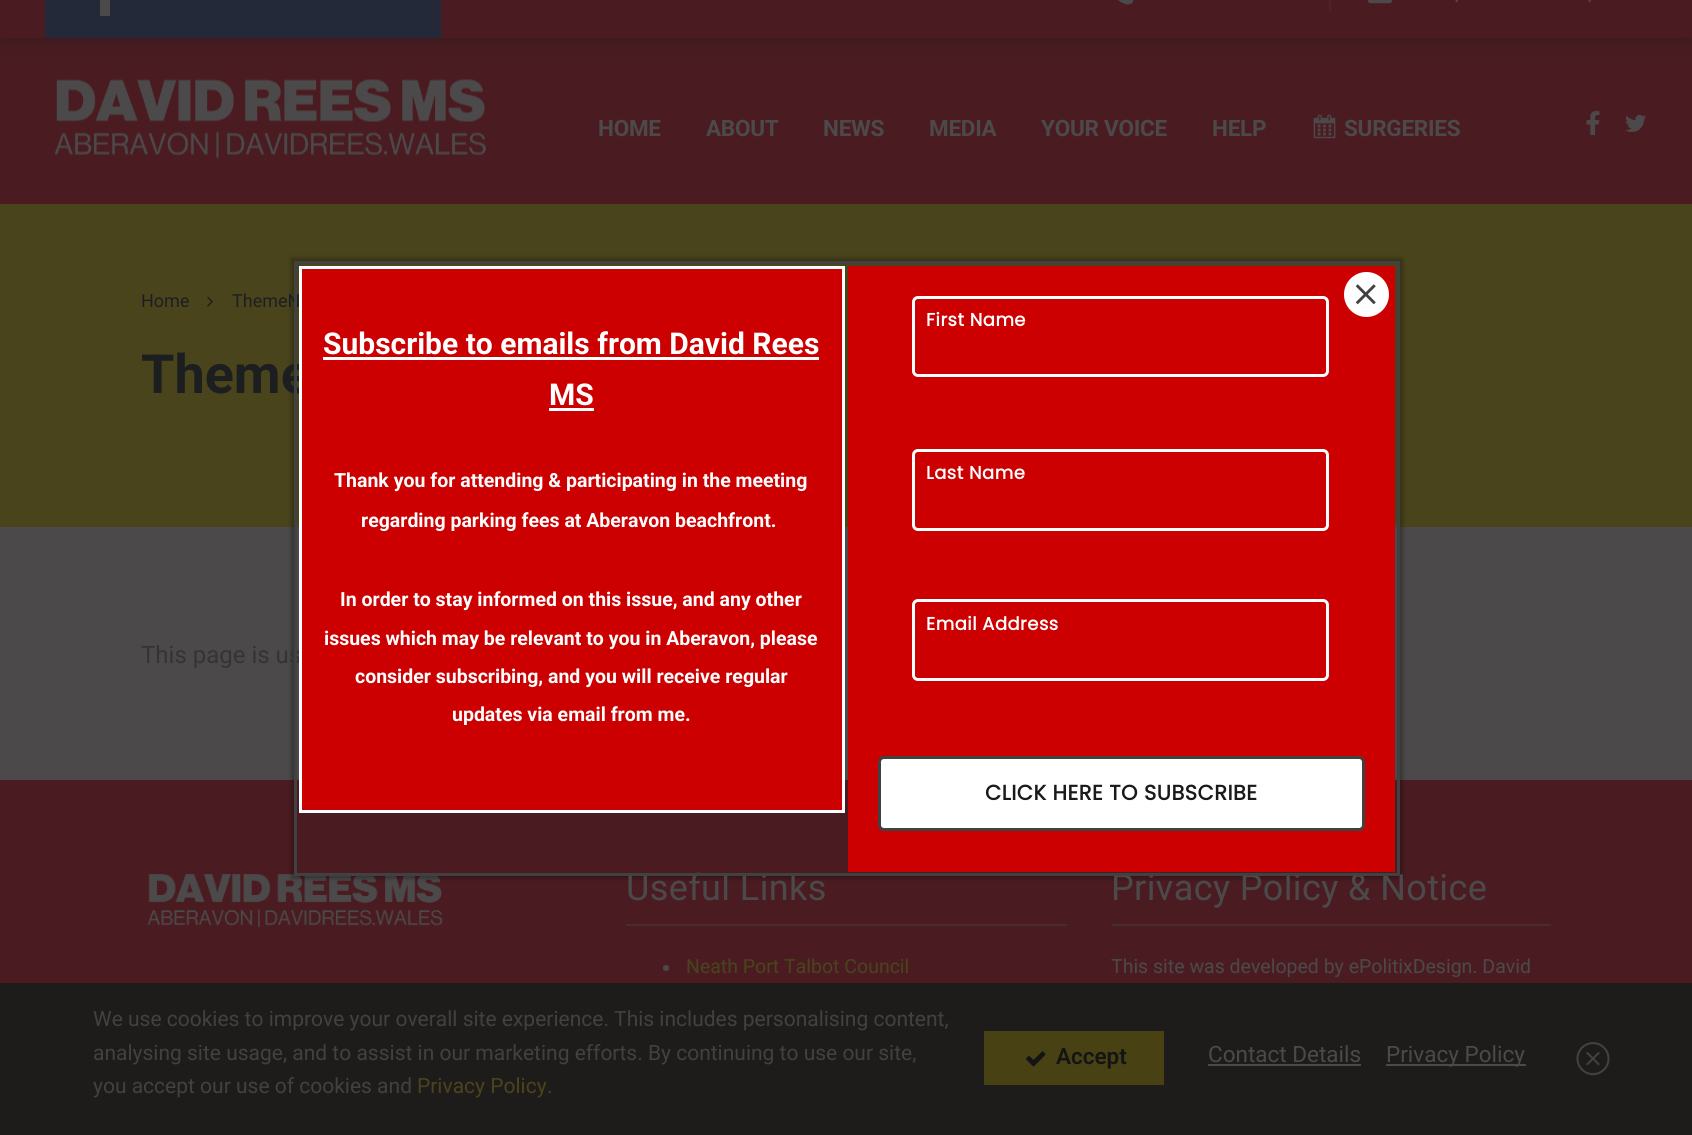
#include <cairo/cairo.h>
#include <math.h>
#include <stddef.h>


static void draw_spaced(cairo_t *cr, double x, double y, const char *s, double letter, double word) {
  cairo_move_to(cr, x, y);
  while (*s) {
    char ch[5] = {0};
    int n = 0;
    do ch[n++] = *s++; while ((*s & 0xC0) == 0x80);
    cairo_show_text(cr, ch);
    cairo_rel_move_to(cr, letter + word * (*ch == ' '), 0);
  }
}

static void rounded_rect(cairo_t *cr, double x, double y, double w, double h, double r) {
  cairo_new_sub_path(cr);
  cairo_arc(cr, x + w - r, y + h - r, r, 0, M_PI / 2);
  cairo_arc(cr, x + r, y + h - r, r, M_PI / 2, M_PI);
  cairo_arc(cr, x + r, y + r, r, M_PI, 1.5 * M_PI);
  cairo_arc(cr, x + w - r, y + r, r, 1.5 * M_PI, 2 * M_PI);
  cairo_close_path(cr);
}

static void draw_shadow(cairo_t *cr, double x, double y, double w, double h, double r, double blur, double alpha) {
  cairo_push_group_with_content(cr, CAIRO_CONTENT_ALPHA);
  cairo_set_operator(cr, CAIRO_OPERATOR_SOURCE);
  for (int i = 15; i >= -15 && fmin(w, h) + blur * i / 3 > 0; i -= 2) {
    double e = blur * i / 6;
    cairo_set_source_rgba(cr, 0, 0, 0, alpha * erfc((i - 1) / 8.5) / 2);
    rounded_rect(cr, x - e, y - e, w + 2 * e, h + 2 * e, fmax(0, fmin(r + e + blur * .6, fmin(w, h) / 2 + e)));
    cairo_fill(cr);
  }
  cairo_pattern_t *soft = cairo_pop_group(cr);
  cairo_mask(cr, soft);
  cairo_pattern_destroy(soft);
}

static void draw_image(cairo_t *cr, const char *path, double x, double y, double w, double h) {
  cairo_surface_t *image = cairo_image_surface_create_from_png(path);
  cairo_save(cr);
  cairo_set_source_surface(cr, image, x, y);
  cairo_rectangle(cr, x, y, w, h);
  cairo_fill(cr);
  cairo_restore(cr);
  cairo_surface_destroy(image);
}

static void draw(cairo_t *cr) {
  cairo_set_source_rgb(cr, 75 / 255.0, 73 / 255.0, 73 / 255.0);
  cairo_paint(cr);
  cairo_set_source_rgb(cr, 74 / 255.0, 28 / 255.0, 34 / 255.0);
  cairo_rectangle(cr, 0, 38, 1692, 166);
  cairo_fill(cr);
  draw_image(cr, "images/3.png", 54, 79, 432, 80);
  cairo_set_source_rgb(cr, 21 / 255.0, 20 / 255.0, 20 / 255.0);
  draw_shadow(cr, 0, -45, 1692, 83, 0, 15, 0.35);
  cairo_set_source_rgb(cr, 74 / 255.0, 28 / 255.0, 34 / 255.0);
  cairo_rectangle(cr, 0, 0, 1692, 38);
  cairo_fill(cr);
  cairo_set_source_rgb(cr, 35 / 255.0, 41 / 255.0, 57 / 255.0);
  cairo_rectangle(cr, 45, 0, 396, 38);
  cairo_fill(cr);
  cairo_set_source_rgb(cr, 75 / 255.0, 73 / 255.0, 73 / 255.0);
  cairo_rectangle(cr, 100, 0, 10, 16);
  cairo_fill(cr);
  draw_image(cr, "images/1.png", 1118, 0, 16, 5);
  cairo_set_source_rgb(cr, 74 / 255.0, 37 / 255.0, 42 / 255.0);
  cairo_rectangle(cr, 1329, 0, 2, 11);
  cairo_fill(cr);
  draw_image(cr, "images/2.png", 1368, 0, 24, 4);
  draw_image(cr, "images/4.png", 1313, 114, 23, 25);
  draw_image(cr, "images/5.png", 1586, 111, 14, 24);
  draw_image(cr, "images/6.png", 1625, 114, 21, 18);
  cairo_set_source_rgb(cr, 74 / 255.0, 68 / 255.0, 28 / 255.0);
  cairo_rectangle(cr, 0, 204, 1692, 323);
  cairo_fill(cr);
  draw_image(cr, "images/7.png", 207, 296, 6, 11);
  cairo_set_source_rgb(cr, 74 / 255.0, 28 / 255.0, 34 / 255.0);
  cairo_rectangle(cr, 0, 780, 1692, 203);
  cairo_fill(cr);
  cairo_set_source_rgb(cr, 30 / 255.0, 27 / 255.0, 27 / 255.0);
  cairo_rectangle(cr, 0, 983, 1692, 152);
  cairo_fill(cr);
  draw_image(cr, "images/8.png", 147, 874, 296, 54);
  cairo_set_source_rgb(cr, 69 / 255.0, 45 / 255.0, 48 / 255.0);
  cairo_rectangle(cr, 626, 924, 441, 2);
  cairo_fill(cr);
  cairo_set_source_rgb(cr, 75 / 255.0, 73 / 255.0, 73 / 255.0);
  cairo_arc(cr, 666, 968, 3, 0, 2 * M_PI);
  cairo_fill(cr);
  cairo_set_source_rgb(cr, 69 / 255.0, 45 / 255.0, 48 / 255.0);
  cairo_rectangle(cr, 1112, 924, 439, 2);
  cairo_fill(cr);
  cairo_save(cr);
  cairo_set_fill_rule(cr, CAIRO_FILL_RULE_EVEN_ODD);
  cairo_new_path(cr);
  cairo_move_to(cr, 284, 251);
  cairo_line_to(cr, 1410, 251);
  cairo_line_to(cr, 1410, 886);
  cairo_line_to(cr, 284, 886);
  cairo_close_path(cr);
  cairo_move_to(cr, 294, 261);
  cairo_line_to(cr, 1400, 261);
  cairo_line_to(cr, 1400, 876);
  cairo_line_to(cr, 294, 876);
  cairo_close_path(cr);
  cairo_clip(cr);
  cairo_set_source_rgb(cr, 0, 0, 0);
  draw_shadow(cr, 291, 258, 1112, 621, 0, 2, 0.27);
  cairo_restore(cr);
  cairo_set_source_rgb(cr, 72 / 255.0, 65 / 255.0, 20 / 255.0);
  cairo_rectangle(cr, 984, 1031, 180, 54);
  cairo_fill(cr);
  draw_image(cr, "images/10.png", 1026, 1051, 20, 16);
  cairo_set_source_rgb(cr, 75 / 255.0, 73 / 255.0, 73 / 255.0);
  cairo_rectangle(cr, 1208, 1064, 153, 2);
  cairo_fill(cr);
  cairo_rectangle(cr, 1386, 1064, 140, 2);
  cairo_fill(cr);
  draw_image(cr, "images/11.png", 1576, 1042, 34, 34);
  cairo_select_font_face(cr, "Roboto", CAIRO_FONT_SLANT_NORMAL, CAIRO_FONT_WEIGHT_NORMAL);
  cairo_set_font_size(cr, 21);
  cairo_move_to(cr, 1454, 2);
  cairo_show_text(cr, ".");
  cairo_move_to(cr, 1587, 2);
  cairo_show_text(cr, ".");
  cairo_select_font_face(cr, "Roboto", CAIRO_FONT_SLANT_NORMAL, CAIRO_FONT_WEIGHT_BOLD);
  cairo_set_font_size(cr, 22.5);
  draw_spaced(cr, 598, 136, "HOME", -0.25, 0);
  draw_spaced(cr, 706, 136, "ABOUT", -0.25, 0);
  draw_spaced(cr, 823, 136, "NEWS", -0.25, 0);
  draw_spaced(cr, 929, 136, "MEDIA", -0.25, 0);
  draw_spaced(cr, 1041, 136, "YOUR VOICE", -0.25, 0);
  draw_spaced(cr, 1212, 136, "HELP", -0.25, 0);
  draw_spaced(cr, 1344, 136, "SURGERIES", -0.25, 0);
  cairo_select_font_face(cr, "Roboto", CAIRO_FONT_SLANT_NORMAL, CAIRO_FONT_WEIGHT_NORMAL);
  cairo_set_font_size(cr, 18);
  cairo_set_source_rgb(cr, 29 / 255.0, 30 / 255.0, 32 / 255.0);
  cairo_move_to(cr, 141, 307);
  cairo_show_text(cr, "Home");
  cairo_move_to(cr, 232, 307);
  cairo_show_text(cr, "ThemeN");
  cairo_select_font_face(cr, "Roboto", CAIRO_FONT_SLANT_NORMAL, CAIRO_FONT_WEIGHT_BOLD);
  cairo_set_font_size(cr, 54);
  cairo_move_to(cr, 141, 393);
  cairo_show_text(cr, "Theme");
  cairo_select_font_face(cr, "Roboto", CAIRO_FONT_SLANT_NORMAL, CAIRO_FONT_WEIGHT_NORMAL);
  cairo_set_font_size(cr, 24);
  cairo_set_source_rgb(cr, 53 / 255.0, 52 / 255.0, 52 / 255.0);
  cairo_move_to(cr, 141, 663);
  cairo_show_text(cr, "This page is us");
  cairo_set_font_size(cr, 36);
  cairo_set_source_rgb(cr, 75 / 255.0, 73 / 255.0, 73 / 255.0);
  draw_spaced(cr, 626, 900, "Useful Links", 0.4, 0);
  cairo_set_font_size(cr, 19.5);
  cairo_set_source_rgb(cr, 74 / 255.0, 68 / 255.0, 28 / 255.0);
  cairo_move_to(cr, 686, 973);
  cairo_show_text(cr, "Neath Port Talbot Council");
  cairo_set_font_size(cr, 36);
  cairo_set_source_rgb(cr, 75 / 255.0, 73 / 255.0, 73 / 255.0);
  draw_spaced(cr, 1111, 900, "Privacy Policy & Notice", 0.4, 0);
  cairo_set_font_size(cr, 19.5);
  cairo_move_to(cr, 1111, 973);
  cairo_show_text(cr, "This site was developed by ePolitixDesign. David");
  cairo_rectangle(cr, 295.5, 262.5, 1103, 612);
  cairo_set_source_rgb(cr, 65 / 255.0, 65 / 255.0, 65 / 255.0);
  cairo_set_line_width(cr, 3);
  cairo_stroke(cr);
  cairo_set_source_rgb(cr, 204 / 255.0, 0, 0);
  cairo_rectangle(cr, 300.5, 267.5, 543, 544);
  cairo_fill_preserve(cr);
  cairo_set_source_rgb(cr, 1, 1, 1);
  cairo_stroke(cr);
  cairo_select_font_face(cr, "Roboto", CAIRO_FONT_SLANT_NORMAL, CAIRO_FONT_WEIGHT_BOLD);
  cairo_set_font_size(cr, 30);
  cairo_move_to(cr, 323, 354);
  cairo_show_text(cr, "Subscribe to emails from David Rees");
  cairo_rectangle(cr, 323, 357, 496, 3);
  cairo_fill(cr);
  cairo_move_to(cr, 549, 405);
  cairo_show_text(cr, "MS");
  cairo_rectangle(cr, 549, 408, 45, 3);
  cairo_fill(cr);
  cairo_set_font_size(cr, 19.5);
  cairo_move_to(cr, 334, 487);
  cairo_show_text(cr, "Thank you for attending & participating in the meeting");
  cairo_move_to(cr, 361, 527);
  cairo_show_text(cr, "regarding parking fees at Aberavon beachfront.");
  cairo_move_to(cr, 340, 606);
  cairo_show_text(cr, "In order to stay informed on this issue, and any other");
  cairo_move_to(cr, 324, 645);
  cairo_show_text(cr, "issues which may be relevant to you in Aberavon, please");
  cairo_move_to(cr, 355, 683);
  cairo_show_text(cr, "consider subscribing, and you will receive regular");
  cairo_move_to(cr, 452, 721);
  cairo_show_text(cr, "updates via email from me.");
  cairo_set_source_rgb(cr, 204 / 255.0, 0, 0);
  cairo_rectangle(cr, 848, 266, 547, 606);
  cairo_fill(cr);
  cairo_set_source_rgb(cr, 1, 1, 1);
  cairo_arc(cr, 1366.5, 294.5, 22.5, 0, 2 * M_PI);
  cairo_fill(cr);
  draw_image(cr, "images/9.png", 1355, 284, 21, 21);
  rounded_rect(cr, 913.5, 297.5, 414, 78, 4.5);
  cairo_stroke(cr);
  cairo_select_font_face(cr, "Poppins", CAIRO_FONT_SLANT_NORMAL, CAIRO_FONT_WEIGHT_BOLD);
  cairo_set_font_size(cr, 18);
  draw_spaced(cr, 926, 326, "First Name", 0.45, 0);
  rounded_rect(cr, 913.5, 450.5, 414, 79, 4.5);
  cairo_stroke(cr);
  draw_spaced(cr, 926, 479, "Last Name", 0.45, 0);
  rounded_rect(cr, 913.5, 600.5, 414, 79, 4.5);
  cairo_stroke(cr);
  draw_spaced(cr, 926, 630, "Email Address", 0.45, 0);
  rounded_rect(cr, 879.5, 757.5, 484, 72, 4.5);
  cairo_fill_preserve(cr);
  cairo_set_source_rgb(cr, 65 / 255.0, 65 / 255.0, 65 / 255.0);
  cairo_stroke(cr);
  cairo_set_font_size(cr, 21);
  cairo_set_source_rgb(cr, 27 / 255.0, 25 / 255.0, 25 / 255.0);
  draw_spaced(cr, 985, 800, "CLICK HERE TO SUBSCRIBE", 0.45, 0);
  cairo_select_font_face(cr, "Roboto", CAIRO_FONT_SLANT_NORMAL, CAIRO_FONT_WEIGHT_NORMAL);
  cairo_set_source_rgb(cr, 66 / 255.0, 64 / 255.0, 64 / 255.0);
  cairo_move_to(cr, 93, 1026);
  cairo_show_text(cr, "We use cookies to improve your overall site experience. This includes personalising content,");
  cairo_move_to(cr, 93, 1060);
  cairo_show_text(cr, "analysing site usage, and to assist in our marketing efforts. By continuing to use our site,");
  cairo_move_to(cr, 93, 1093);
  cairo_show_text(cr, "you accept our use of cookies and");
  cairo_set_source_rgb(cr, 74 / 255.0, 68 / 255.0, 28 / 255.0);
  cairo_move_to(cr, 417, 1093);
  cairo_show_text(cr, "Privacy Policy");
  cairo_set_source_rgb(cr, 66 / 255.0, 64 / 255.0, 64 / 255.0);
  cairo_move_to(cr, 547, 1093);
  cairo_show_text(cr, ".");
  cairo_select_font_face(cr, "Roboto SemiBold", CAIRO_FONT_SLANT_NORMAL, CAIRO_FONT_WEIGHT_NORMAL);
  cairo_set_font_size(cr, 22.5);
  cairo_set_source_rgb(cr, 21 / 255.0, 20 / 255.0, 20 / 255.0);
  cairo_move_to(cr, 1056, 1064);
  cairo_show_text(cr, "Accept");
  cairo_select_font_face(cr, "Roboto", CAIRO_FONT_SLANT_NORMAL, CAIRO_FONT_WEIGHT_NORMAL);
  cairo_set_source_rgb(cr, 75 / 255.0, 73 / 255.0, 73 / 255.0);
  cairo_move_to(cr, 1208, 1062);
  cairo_show_text(cr, "Contact Details");
  cairo_move_to(cr, 1386, 1062);
  cairo_show_text(cr, "Privacy Policy");
}

int main(void) {
  cairo_surface_t *surface = cairo_image_surface_create(CAIRO_FORMAT_RGB24, 1692, 1135);
  cairo_t *cr = cairo_create(surface);
  cairo_font_options_t *options = cairo_font_options_create();
  cairo_font_options_set_hint_metrics(options, CAIRO_HINT_METRICS_OFF);
  cairo_font_options_set_hint_style(options, CAIRO_HINT_STYLE_NONE);
  cairo_set_font_options(cr, options);
  cairo_set_miter_limit(cr, 4);
  draw(cr);
  cairo_surface_write_to_png(surface, "out.png");
  cairo_font_options_destroy(options);
  cairo_destroy(cr);
  cairo_surface_destroy(surface);
  return 0;
}
